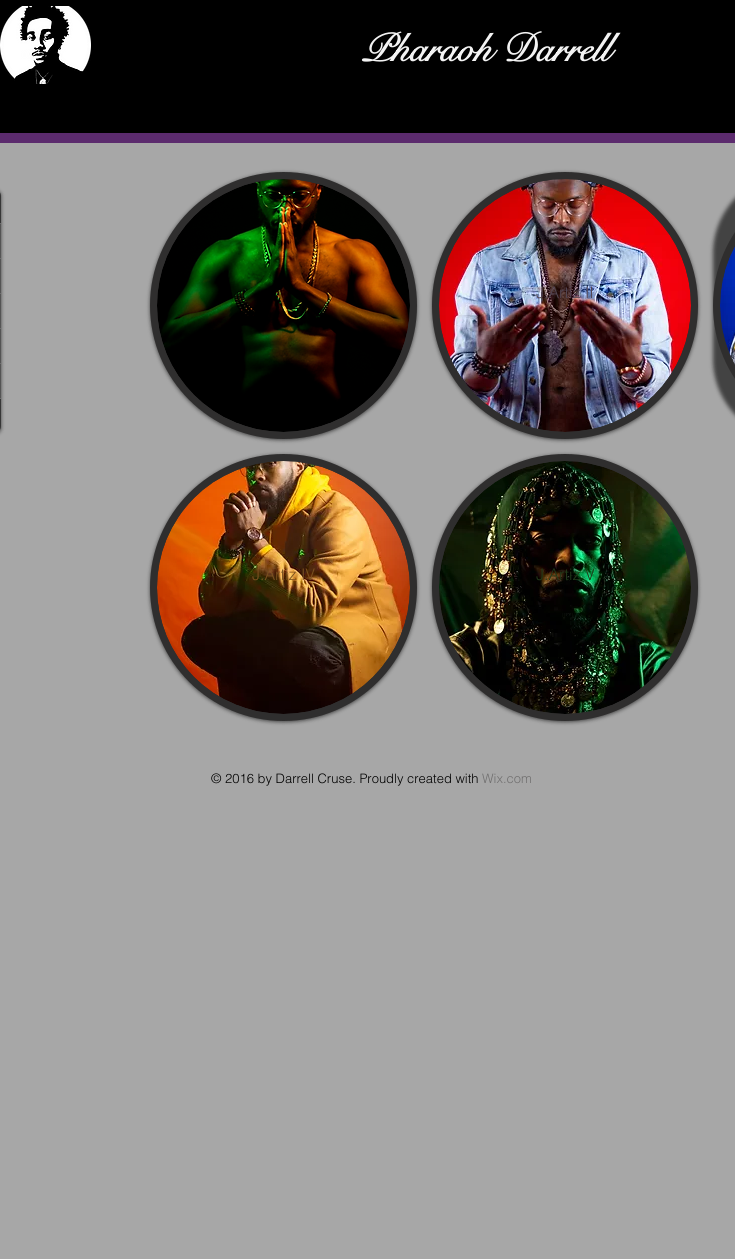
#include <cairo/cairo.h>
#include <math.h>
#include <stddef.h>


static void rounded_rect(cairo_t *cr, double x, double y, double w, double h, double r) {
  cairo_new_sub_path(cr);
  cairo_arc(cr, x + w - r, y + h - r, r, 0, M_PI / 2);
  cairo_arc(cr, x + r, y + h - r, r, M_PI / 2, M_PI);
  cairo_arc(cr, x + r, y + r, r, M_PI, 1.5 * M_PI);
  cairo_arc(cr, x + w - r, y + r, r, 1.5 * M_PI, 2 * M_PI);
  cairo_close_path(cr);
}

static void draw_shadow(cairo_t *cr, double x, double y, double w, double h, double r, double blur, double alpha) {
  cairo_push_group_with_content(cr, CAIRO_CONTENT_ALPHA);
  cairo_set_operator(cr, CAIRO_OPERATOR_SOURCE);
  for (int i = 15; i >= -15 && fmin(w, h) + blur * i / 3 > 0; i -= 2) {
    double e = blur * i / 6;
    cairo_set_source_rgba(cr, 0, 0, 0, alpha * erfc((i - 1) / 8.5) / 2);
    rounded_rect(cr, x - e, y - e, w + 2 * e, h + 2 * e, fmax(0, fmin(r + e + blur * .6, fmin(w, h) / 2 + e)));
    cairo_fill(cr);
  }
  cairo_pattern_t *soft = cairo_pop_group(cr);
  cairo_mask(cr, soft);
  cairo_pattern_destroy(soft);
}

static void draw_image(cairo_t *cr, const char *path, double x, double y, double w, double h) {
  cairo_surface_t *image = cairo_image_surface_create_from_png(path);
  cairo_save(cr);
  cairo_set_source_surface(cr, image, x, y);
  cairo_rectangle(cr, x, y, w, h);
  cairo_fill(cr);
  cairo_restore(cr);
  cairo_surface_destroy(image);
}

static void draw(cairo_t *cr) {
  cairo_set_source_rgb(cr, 167 / 255.0, 167 / 255.0, 167 / 255.0);
  cairo_paint(cr);
  cairo_set_source_rgb(cr, 0, 0, 0);
  cairo_rectangle(cr, 0, 0, 735, 133);
  cairo_fill(cr);
  cairo_set_source_rgb(cr, 92 / 255.0, 43 / 255.0, 110 / 255.0);
  cairo_rectangle(cr, 0, 133, 735, 10);
  cairo_fill(cr);
  draw_image(cr, "images/1.png", 0, 6, 91, 78);
  cairo_set_source_rgb(cr, 0, 0, 0);
  draw_shadow(cr, -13, 190, 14, 244, 7, 2, 0.6);
  cairo_set_source_rgba(cr, 0, 0, 0, 0.5);
  cairo_new_path(cr);
  cairo_move_to(cr, 0, 189);
  cairo_line_to(cr, -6, 189);
  cairo_curve_to(cr, -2, 189, 1, 192, 1, 196);
  cairo_line_to(cr, 1, 223);
  cairo_line_to(cr, -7, 223);
  cairo_line_to(cr, -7, 196);
  cairo_curve_to(cr, -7, 192, -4, 189, 0, 189);
  cairo_close_path(cr);
  cairo_fill(cr);
  cairo_set_source_rgb(cr, 84 / 255.0, 84 / 255.0, 84 / 255.0);
  cairo_rectangle(cr, 0, 224, 1, 34);
  cairo_fill(cr);
  cairo_rectangle(cr, 0, 259, 1, 34);
  cairo_fill(cr);
  cairo_rectangle(cr, 0, 294, 1, 34);
  cairo_fill(cr);
  cairo_rectangle(cr, 0, 329, 1, 34);
  cairo_fill(cr);
  cairo_rectangle(cr, 0, 364, 1, 34);
  cairo_fill(cr);
  cairo_set_source_rgba(cr, 0, 0, 0, 0.5);
  cairo_new_path(cr);
  cairo_move_to(cr, -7, 399);
  cairo_line_to(cr, 1, 399);
  cairo_line_to(cr, 1, 426);
  cairo_curve_to(cr, 1, 430, -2, 433, -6, 433);
  cairo_line_to(cr, 0, 433);
  cairo_curve_to(cr, -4, 433, -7, 430, -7, 426);
  cairo_close_path(cr);
  cairo_fill(cr);
  cairo_set_source_rgb(cr, 0, 0, 0);
  draw_shadow(cr, 150, 173, 267, 267, 133.5, 2, 0.6);
  cairo_set_source_rgb(cr, 47 / 255.0, 46 / 255.0, 46 / 255.0);
  cairo_arc(cr, 283.5, 305.5, 130, 0, 2 * M_PI);
  cairo_fill_preserve(cr);
  cairo_set_line_width(cr, 7);
  cairo_stroke(cr);
  draw_image(cr, "images/2.png", 157, 179, 253, 253);
  cairo_set_source_rgb(cr, 0, 0, 0);
  draw_shadow(cr, 432, 173, 266, 267, 133, 2, 0.6);
  cairo_set_source_rgb(cr, 47 / 255.0, 46 / 255.0, 46 / 255.0);
  rounded_rect(cr, 435.5, 175.5, 259, 260, 129.5);
  cairo_fill_preserve(cr);
  cairo_stroke(cr);
  draw_image(cr, "images/3.png", 439, 179, 252, 253);
  cairo_set_source_rgb(cr, 0, 0, 0);
  draw_shadow(cr, 713, 173, 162, 267, 133.5, 2, 0.6);
  cairo_set_source_rgb(cr, 47 / 255.0, 46 / 255.0, 46 / 255.0);
  rounded_rect(cr, 716.5, 175.5, 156, 260, 130);
  cairo_fill_preserve(cr);
  cairo_stroke(cr);
  draw_image(cr, "images/4.png", 720, 246, 15, 119);
  cairo_set_source_rgb(cr, 0, 0, 0);
  draw_shadow(cr, 150, 455, 267, 267, 133.5, 2, 0.6);
  cairo_set_source_rgb(cr, 47 / 255.0, 46 / 255.0, 46 / 255.0);
  cairo_arc(cr, 283.5, 587.5, 130, 0, 2 * M_PI);
  cairo_fill_preserve(cr);
  cairo_stroke(cr);
  draw_image(cr, "images/5.png", 157, 461, 253, 253);
  cairo_set_source_rgb(cr, 0, 0, 0);
  draw_shadow(cr, 432, 455, 266, 267, 133, 2, 0.6);
  cairo_set_source_rgb(cr, 47 / 255.0, 46 / 255.0, 46 / 255.0);
  rounded_rect(cr, 435.5, 457.5, 259, 260, 129.5);
  cairo_fill_preserve(cr);
  cairo_stroke(cr);
  draw_image(cr, "images/6.png", 439, 461, 252, 253);
  cairo_select_font_face(cr, "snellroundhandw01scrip", CAIRO_FONT_SLANT_NORMAL, CAIRO_FONT_WEIGHT_BOLD);
  cairo_set_font_size(cr, 39);
  cairo_set_source_rgb(cr, 243 / 255.0, 243 / 255.0, 243 / 255.0);
  cairo_move_to(cr, 362, 61);
  cairo_show_text(cr, "Pharaoh Darrell");
  cairo_select_font_face(cr, "helvetica Light", CAIRO_FONT_SLANT_NORMAL, CAIRO_FONT_WEIGHT_NORMAL);
  cairo_set_font_size(cr, 16);
  cairo_set_source_rgb(cr, 83 / 255.0, 70 / 255.0, 83 / 255.0);
  cairo_move_to(cr, 536, 298);
  cairo_show_text(cr, "J.Artiz II");
  cairo_set_source_rgb(cr, 122 / 255.0, 80 / 255.0, 31 / 255.0);
  cairo_move_to(cr, 252, 580);
  cairo_show_text(cr, "J.Artiz IV");
  cairo_set_source_rgb(cr, 33 / 255.0, 57 / 255.0, 26 / 255.0);
  cairo_move_to(cr, 536, 580);
  cairo_show_text(cr, "J.Artiz V");
  cairo_set_font_size(cr, 13);
  cairo_set_source_rgb(cr, 0, 0, 0);
  cairo_move_to(cr, 211, 783);
  cairo_show_text(cr, "© 2016 by Darrell Cruse. Proudly created with");
  cairo_set_source_rgb(cr, 113 / 255.0, 112 / 255.0, 112 / 255.0);
  cairo_move_to(cr, 482, 783);
  cairo_show_text(cr, "Wix.com");
}

int main(void) {
  cairo_surface_t *surface = cairo_image_surface_create(CAIRO_FORMAT_RGB24, 735, 1259);
  cairo_t *cr = cairo_create(surface);
  cairo_font_options_t *options = cairo_font_options_create();
  cairo_font_options_set_hint_metrics(options, CAIRO_HINT_METRICS_OFF);
  cairo_font_options_set_hint_style(options, CAIRO_HINT_STYLE_NONE);
  cairo_set_font_options(cr, options);
  cairo_set_miter_limit(cr, 4);
  draw(cr);
  cairo_surface_write_to_png(surface, "out.png");
  cairo_font_options_destroy(options);
  cairo_destroy(cr);
  cairo_surface_destroy(surface);
  return 0;
}
